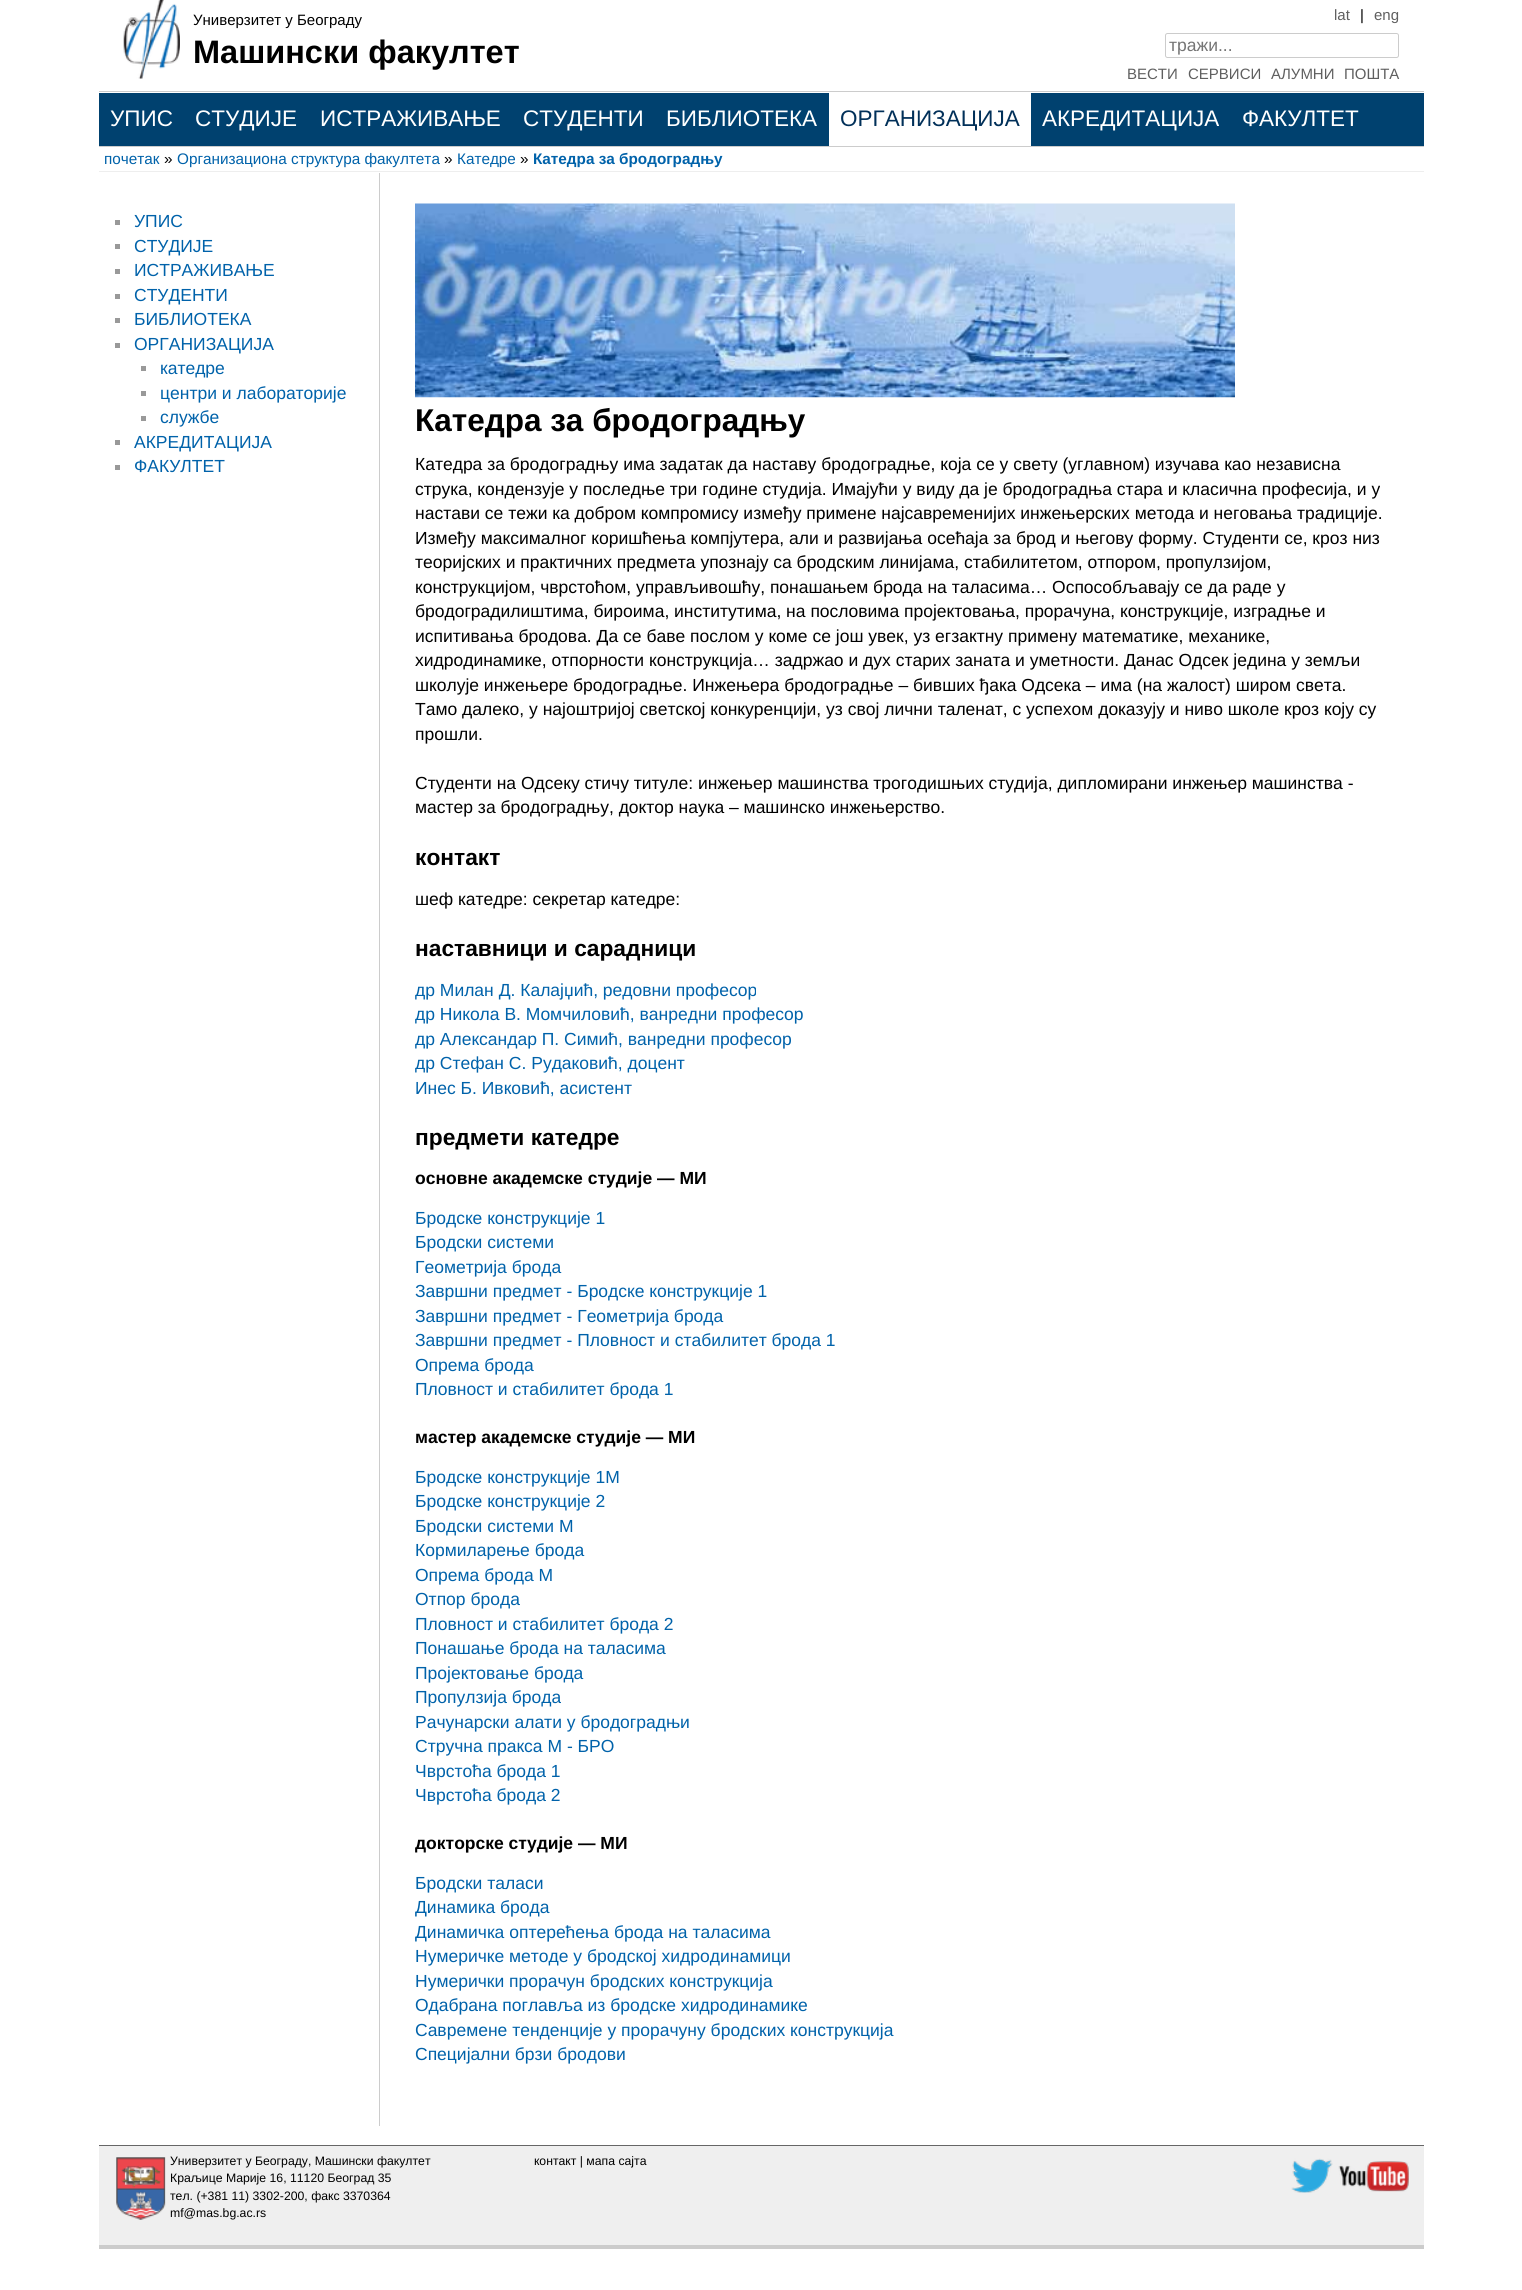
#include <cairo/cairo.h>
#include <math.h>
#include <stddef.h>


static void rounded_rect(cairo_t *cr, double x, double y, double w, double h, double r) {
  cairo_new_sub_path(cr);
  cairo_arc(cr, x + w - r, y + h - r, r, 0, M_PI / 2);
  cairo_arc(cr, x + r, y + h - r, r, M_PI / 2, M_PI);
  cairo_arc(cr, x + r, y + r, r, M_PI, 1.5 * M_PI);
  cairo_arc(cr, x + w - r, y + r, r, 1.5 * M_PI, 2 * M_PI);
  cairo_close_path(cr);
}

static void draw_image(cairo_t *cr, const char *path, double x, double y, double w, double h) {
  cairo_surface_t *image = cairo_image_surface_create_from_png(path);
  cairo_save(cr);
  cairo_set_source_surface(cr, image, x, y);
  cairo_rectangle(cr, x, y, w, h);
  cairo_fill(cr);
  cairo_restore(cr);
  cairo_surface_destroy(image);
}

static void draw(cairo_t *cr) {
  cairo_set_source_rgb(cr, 1, 1, 1);
  cairo_paint(cr);
  draw_image(cr, "images/1.png", 123, 0, 57, 79);
  rounded_rect(cr, 1165.5, 33.5, 233, 24, 2);
  cairo_set_source_rgb(cr, 204 / 255.0, 204 / 255.0, 204 / 255.0);
  cairo_set_line_width(cr, 1);
  cairo_stroke(cr);
  cairo_rectangle(cr, 99, 91, 1325, 1);
  cairo_fill(cr);
  cairo_set_source_rgb(cr, 0, 65 / 255.0, 111 / 255.0);
  cairo_rectangle(cr, 99, 93, 1325, 53);
  cairo_fill(cr);
  cairo_set_source_rgb(cr, 1, 1, 1);
  cairo_rectangle(cr, 829, 93, 202, 53);
  cairo_fill(cr);
  cairo_set_source_rgb(cr, 204 / 255.0, 204 / 255.0, 204 / 255.0);
  cairo_rectangle(cr, 99, 146, 1325, 1);
  cairo_fill(cr);
  cairo_set_source_rgb(cr, 238 / 255.0, 238 / 255.0, 238 / 255.0);
  cairo_rectangle(cr, 99, 171, 1325, 1);
  cairo_fill(cr);
  cairo_set_source_rgb(cr, 153 / 255.0, 153 / 255.0, 153 / 255.0);
  cairo_rectangle(cr, 115, 220, 5, 5);
  cairo_fill(cr);
  cairo_rectangle(cr, 115, 244, 5, 5);
  cairo_fill(cr);
  cairo_rectangle(cr, 115, 269, 5, 5);
  cairo_fill(cr);
  cairo_rectangle(cr, 115, 294, 5, 5);
  cairo_fill(cr);
  cairo_rectangle(cr, 115, 318, 5, 5);
  cairo_fill(cr);
  cairo_rectangle(cr, 115, 343, 5, 5);
  cairo_fill(cr);
  cairo_rectangle(cr, 141, 366, 5, 5);
  cairo_fill(cr);
  cairo_rectangle(cr, 141, 391, 5, 5);
  cairo_fill(cr);
  cairo_rectangle(cr, 141, 416, 5, 5);
  cairo_fill(cr);
  cairo_rectangle(cr, 115, 440, 5, 5);
  cairo_fill(cr);
  cairo_rectangle(cr, 115, 465, 5, 5);
  cairo_fill(cr);
  cairo_set_source_rgb(cr, 204 / 255.0, 204 / 255.0, 204 / 255.0);
  cairo_rectangle(cr, 379, 173, 1, 1953);
  cairo_fill(cr);
  draw_image(cr, "images/2.png", 415, 203, 820, 195);
  cairo_set_source_rgb(cr, 239 / 255.0, 239 / 255.0, 239 / 255.0);
  cairo_rectangle(cr, 99, 2146, 1325, 99);
  cairo_fill(cr);
  cairo_set_source_rgb(cr, 102 / 255.0, 102 / 255.0, 102 / 255.0);
  cairo_rectangle(cr, 99, 2145, 1325, 1);
  cairo_fill(cr);
  cairo_set_source_rgb(cr, 204 / 255.0, 204 / 255.0, 204 / 255.0);
  cairo_rectangle(cr, 99, 2245, 1325, 4);
  cairo_fill(cr);
  draw_image(cr, "images/3.png", 116, 2157, 50, 63);
  draw_image(cr, "images/4.png", 1291, 2158, 42, 35);
  draw_image(cr, "images/5.png", 1338, 2161, 71, 31);
  cairo_select_font_face(cr, "Liberation Sans", CAIRO_FONT_SLANT_NORMAL, CAIRO_FONT_WEIGHT_NORMAL);
  cairo_set_font_size(cr, 15);
  cairo_set_source_rgb(cr, 0, 0, 0);
  cairo_move_to(cr, 193, 25);
  cairo_show_text(cr, "Универзитет у Београду");
  cairo_select_font_face(cr, "Liberation Sans", CAIRO_FONT_SLANT_NORMAL, CAIRO_FONT_WEIGHT_BOLD);
  cairo_set_font_size(cr, 32.5);
  cairo_move_to(cr, 193, 63);
  cairo_show_text(cr, "Машински факултет");
  cairo_select_font_face(cr, "Liberation Sans", CAIRO_FONT_SLANT_NORMAL, CAIRO_FONT_WEIGHT_NORMAL);
  cairo_set_font_size(cr, 15);
  cairo_set_source_rgb(cr, 95 / 255.0, 95 / 255.0, 95 / 255.0);
  cairo_move_to(cr, 1334, 20);
  cairo_show_text(cr, "lat");
  cairo_set_source_rgb(cr, 0, 0, 0);
  cairo_move_to(cr, 1360, 20);
  cairo_show_text(cr, "|");
  cairo_set_source_rgb(cr, 95 / 255.0, 95 / 255.0, 95 / 255.0);
  cairo_move_to(cr, 1374, 20);
  cairo_show_text(cr, "eng");
  cairo_set_font_size(cr, 17.5);
  cairo_set_source_rgb(cr, 117 / 255.0, 117 / 255.0, 117 / 255.0);
  cairo_move_to(cr, 1169, 51);
  cairo_show_text(cr, "тражи...");
  cairo_set_font_size(cr, 15);
  cairo_set_source_rgb(cr, 95 / 255.0, 95 / 255.0, 95 / 255.0);
  cairo_move_to(cr, 1127, 79);
  cairo_show_text(cr, "ВЕСТИ");
  cairo_move_to(cr, 1188, 79);
  cairo_show_text(cr, "СЕРВИСИ");
  cairo_move_to(cr, 1271, 79);
  cairo_show_text(cr, "АЛУМНИ");
  cairo_move_to(cr, 1344, 79);
  cairo_show_text(cr, "ПОШТА");
  cairo_set_font_size(cr, 22.5);
  cairo_set_source_rgb(cr, 1, 1, 1);
  cairo_move_to(cr, 110, 126);
  cairo_show_text(cr, "УПИС");
  cairo_move_to(cr, 195, 126);
  cairo_show_text(cr, "СТУДИЈЕ");
  cairo_move_to(cr, 320, 126);
  cairo_show_text(cr, "ИСТРАЖИВАЊЕ");
  cairo_move_to(cr, 523, 126);
  cairo_show_text(cr, "СТУДЕНТИ");
  cairo_move_to(cr, 666, 126);
  cairo_show_text(cr, "БИБЛИОТЕКА");
  cairo_set_source_rgb(cr, 1 / 255.0, 48 / 255.0, 89 / 255.0);
  cairo_move_to(cr, 840, 126);
  cairo_show_text(cr, "ОРГАНИЗАЦИЈА");
  cairo_set_source_rgb(cr, 1, 1, 1);
  cairo_move_to(cr, 1042, 126);
  cairo_show_text(cr, "АКРЕДИТАЦИЈА");
  cairo_move_to(cr, 1242, 126);
  cairo_show_text(cr, "ФАКУЛТЕТ");
  cairo_set_font_size(cr, 15.3);
  cairo_set_source_rgb(cr, 0, 98 / 255.0, 170 / 255.0);
  cairo_move_to(cr, 104, 164);
  cairo_show_text(cr, "почетак");
  cairo_set_source_rgb(cr, 0, 0, 0);
  cairo_move_to(cr, 164, 164);
  cairo_show_text(cr, "»");
  cairo_set_source_rgb(cr, 0, 98 / 255.0, 170 / 255.0);
  cairo_move_to(cr, 177, 164);
  cairo_show_text(cr, "Организациона структура факултета");
  cairo_set_source_rgb(cr, 0, 0, 0);
  cairo_move_to(cr, 444, 164);
  cairo_show_text(cr, "»");
  cairo_set_source_rgb(cr, 0, 98 / 255.0, 170 / 255.0);
  cairo_move_to(cr, 457, 164);
  cairo_show_text(cr, "Катедре");
  cairo_set_source_rgb(cr, 0, 0, 0);
  cairo_move_to(cr, 520, 164);
  cairo_show_text(cr, "»");
  cairo_select_font_face(cr, "Liberation Sans", CAIRO_FONT_SLANT_NORMAL, CAIRO_FONT_WEIGHT_BOLD);
  cairo_set_source_rgb(cr, 0, 98 / 255.0, 170 / 255.0);
  cairo_move_to(cr, 533, 164);
  cairo_show_text(cr, "Катедра за бродоградњу");
  cairo_select_font_face(cr, "Liberation Sans", CAIRO_FONT_SLANT_NORMAL, CAIRO_FONT_WEIGHT_NORMAL);
  cairo_set_font_size(cr, 17.5);
  cairo_move_to(cr, 134, 227);
  cairo_show_text(cr, "УПИС");
  cairo_move_to(cr, 134, 252);
  cairo_show_text(cr, "СТУДИЈЕ");
  cairo_move_to(cr, 134, 276);
  cairo_show_text(cr, "ИСТРАЖИВАЊЕ");
  cairo_move_to(cr, 134, 301);
  cairo_show_text(cr, "СТУДЕНТИ");
  cairo_move_to(cr, 134, 325);
  cairo_show_text(cr, "БИБЛИОТЕКА");
  cairo_move_to(cr, 134, 350);
  cairo_show_text(cr, "ОРГАНИЗАЦИЈА");
  cairo_move_to(cr, 160, 374);
  cairo_show_text(cr, "катедре");
  cairo_move_to(cr, 160, 399);
  cairo_show_text(cr, "центри и лабораторије");
  cairo_move_to(cr, 160, 423);
  cairo_show_text(cr, "службе");
  cairo_move_to(cr, 134, 448);
  cairo_show_text(cr, "АКРЕДИТАЦИЈА");
  cairo_move_to(cr, 134, 472);
  cairo_show_text(cr, "ФАКУЛТЕТ");
  cairo_select_font_face(cr, "Liberation Sans", CAIRO_FONT_SLANT_NORMAL, CAIRO_FONT_WEIGHT_BOLD);
  cairo_set_font_size(cr, 31.5);
  cairo_set_source_rgb(cr, 0, 0, 0);
  cairo_move_to(cr, 415, 431);
  cairo_show_text(cr, "Катедра за бродоградњу");
  cairo_select_font_face(cr, "Liberation Sans", CAIRO_FONT_SLANT_NORMAL, CAIRO_FONT_WEIGHT_NORMAL);
  cairo_set_font_size(cr, 17.5);
  cairo_move_to(cr, 415, 470);
  cairo_show_text(cr, "Катедра за бродоградњу има задатак да наставу бродоградње, која се у свету (углавном) изучава као независна");
  cairo_move_to(cr, 415, 495);
  cairo_show_text(cr, "струка, кондензује у последње три године студија. Имајући у виду да је бродоградња стара и класична професија, и у");
  cairo_move_to(cr, 415, 519);
  cairo_show_text(cr, "настави се тежи ка добром компромису између примене најсавременијих инжењерских метода и неговања традиције.");
  cairo_move_to(cr, 415, 544);
  cairo_show_text(cr, "Између максималног коришћења компјутера, али и развијања осећаја за брод и његову форму. Студенти се, кроз низ");
  cairo_move_to(cr, 415, 568);
  cairo_show_text(cr, "теоријских и практичних предмета упознају са бродским линијама, стабилитетом, отпором, пропулзијом,");
  cairo_move_to(cr, 415, 593);
  cairo_show_text(cr, "конструкцијом, чврстоћом, управљивошћу, понашањем брода на таласима… Оспособљавају се да раде у");
  cairo_move_to(cr, 415, 617);
  cairo_show_text(cr, "бродоградилиштима, бироима, институтима, на пословима пројектовања, прорачуна, конструкције, изградње и");
  cairo_move_to(cr, 415, 642);
  cairo_show_text(cr, "испитивања бродова. Да се баве послом у коме се још увек, уз егзактну примену математике, механике,");
  cairo_move_to(cr, 415, 666);
  cairo_show_text(cr, "хидродинамике, отпорности конструкција… задржао и дух старих заната и уметности. Данас Одсек једина у земљи");
  cairo_move_to(cr, 415, 691);
  cairo_show_text(cr, "школује инжењере бродоградње. Инжењера бродоградње – бивших ђака Одсека – има (на жалост) широм света.");
  cairo_move_to(cr, 415, 715);
  cairo_show_text(cr, "Тамо далеко, у најоштријој светској конкуренцији, уз свој лични таленат, с успехом доказују и ниво школе кроз коју су");
  cairo_move_to(cr, 415, 740);
  cairo_show_text(cr, "прошли.");
  cairo_move_to(cr, 415, 789);
  cairo_show_text(cr, "Студенти на Одсеку стичу титуле: инжењер машинства трогодишњих студија, дипломирани инжењер машинства -");
  cairo_move_to(cr, 415, 813);
  cairo_show_text(cr, "мастер за бродоградњу, доктор наука – машинско инжењерство.");
  cairo_select_font_face(cr, "Liberation Sans", CAIRO_FONT_SLANT_NORMAL, CAIRO_FONT_WEIGHT_BOLD);
  cairo_set_font_size(cr, 22.75);
  cairo_move_to(cr, 415, 865);
  cairo_show_text(cr, "контакт");
  cairo_select_font_face(cr, "Liberation Sans", CAIRO_FONT_SLANT_NORMAL, CAIRO_FONT_WEIGHT_NORMAL);
  cairo_set_font_size(cr, 17.5);
  cairo_move_to(cr, 415, 905);
  cairo_show_text(cr, "шеф катедре: секретар катедре:");
  cairo_select_font_face(cr, "Liberation Sans", CAIRO_FONT_SLANT_NORMAL, CAIRO_FONT_WEIGHT_BOLD);
  cairo_set_font_size(cr, 22.75);
  cairo_move_to(cr, 415, 956);
  cairo_show_text(cr, "наставници и сарадници");
  cairo_select_font_face(cr, "Liberation Sans", CAIRO_FONT_SLANT_NORMAL, CAIRO_FONT_WEIGHT_NORMAL);
  cairo_set_font_size(cr, 17.5);
  cairo_set_source_rgb(cr, 0, 98 / 255.0, 170 / 255.0);
  cairo_move_to(cr, 415, 996);
  cairo_show_text(cr, "др Милан Д. Калајџић, редовни професор");
  cairo_move_to(cr, 415, 1020);
  cairo_show_text(cr, "др Никола В. Момчиловић, ванредни професор");
  cairo_move_to(cr, 415, 1045);
  cairo_show_text(cr, "др Александар П. Симић, ванредни професор");
  cairo_move_to(cr, 415, 1069);
  cairo_show_text(cr, "др Стефан С. Рудаковић, доцент");
  cairo_move_to(cr, 415, 1094);
  cairo_show_text(cr, "Инес Б. Ивковић, асистент");
  cairo_select_font_face(cr, "Liberation Sans", CAIRO_FONT_SLANT_NORMAL, CAIRO_FONT_WEIGHT_BOLD);
  cairo_set_font_size(cr, 22.75);
  cairo_set_source_rgb(cr, 0, 0, 0);
  cairo_move_to(cr, 415, 1145);
  cairo_show_text(cr, "предмети катедре");
  cairo_set_font_size(cr, 17.5);
  cairo_move_to(cr, 415, 1184);
  cairo_show_text(cr, "основне академске студије — МИ");
  cairo_select_font_face(cr, "Liberation Sans", CAIRO_FONT_SLANT_NORMAL, CAIRO_FONT_WEIGHT_NORMAL);
  cairo_set_source_rgb(cr, 0, 98 / 255.0, 170 / 255.0);
  cairo_move_to(cr, 415, 1224);
  cairo_show_text(cr, "Бродске конструкције 1");
  cairo_move_to(cr, 415, 1248);
  cairo_show_text(cr, "Бродски системи");
  cairo_move_to(cr, 415, 1273);
  cairo_show_text(cr, "Геометрија брода");
  cairo_move_to(cr, 415, 1297);
  cairo_show_text(cr, "Завршни предмет - Бродске конструкције 1");
  cairo_move_to(cr, 415, 1322);
  cairo_show_text(cr, "Завршни предмет - Геометрија брода");
  cairo_move_to(cr, 415, 1346);
  cairo_show_text(cr, "Завршни предмет - Пловност и стабилитет брода 1");
  cairo_move_to(cr, 415, 1371);
  cairo_show_text(cr, "Опрема брода");
  cairo_move_to(cr, 415, 1395);
  cairo_show_text(cr, "Пловност и стабилитет брода 1");
  cairo_select_font_face(cr, "Liberation Sans", CAIRO_FONT_SLANT_NORMAL, CAIRO_FONT_WEIGHT_BOLD);
  cairo_set_source_rgb(cr, 0, 0, 0);
  cairo_move_to(cr, 415, 1443);
  cairo_show_text(cr, "мастер академске студије — МИ");
  cairo_select_font_face(cr, "Liberation Sans", CAIRO_FONT_SLANT_NORMAL, CAIRO_FONT_WEIGHT_NORMAL);
  cairo_set_source_rgb(cr, 0, 98 / 255.0, 170 / 255.0);
  cairo_move_to(cr, 415, 1483);
  cairo_show_text(cr, "Бродске конструкције 1М");
  cairo_move_to(cr, 415, 1507);
  cairo_show_text(cr, "Бродске конструкције 2");
  cairo_move_to(cr, 415, 1532);
  cairo_show_text(cr, "Бродски системи М");
  cairo_move_to(cr, 415, 1556);
  cairo_show_text(cr, "Кормиларење брода");
  cairo_move_to(cr, 415, 1581);
  cairo_show_text(cr, "Опрема брода М");
  cairo_move_to(cr, 415, 1605);
  cairo_show_text(cr, "Отпор брода");
  cairo_move_to(cr, 415, 1630);
  cairo_show_text(cr, "Пловност и стабилитет брода 2");
  cairo_move_to(cr, 415, 1654);
  cairo_show_text(cr, "Понашање брода на таласима");
  cairo_move_to(cr, 415, 1679);
  cairo_show_text(cr, "Пројектовање брода");
  cairo_move_to(cr, 415, 1703);
  cairo_show_text(cr, "Пропулзија брода");
  cairo_move_to(cr, 415, 1728);
  cairo_show_text(cr, "Рачунарски алати у бродоградњи");
  cairo_move_to(cr, 415, 1752);
  cairo_show_text(cr, "Стручна пракса М - БРО");
  cairo_move_to(cr, 415, 1777);
  cairo_show_text(cr, "Чврстоћа брода 1");
  cairo_move_to(cr, 415, 1801);
  cairo_show_text(cr, "Чврстоћа брода 2");
  cairo_select_font_face(cr, "Liberation Sans", CAIRO_FONT_SLANT_NORMAL, CAIRO_FONT_WEIGHT_BOLD);
  cairo_set_source_rgb(cr, 0, 0, 0);
  cairo_move_to(cr, 415, 1849);
  cairo_show_text(cr, "докторске студије — МИ");
  cairo_select_font_face(cr, "Liberation Sans", CAIRO_FONT_SLANT_NORMAL, CAIRO_FONT_WEIGHT_NORMAL);
  cairo_set_source_rgb(cr, 0, 98 / 255.0, 170 / 255.0);
  cairo_move_to(cr, 415, 1889);
  cairo_show_text(cr, "Бродски таласи");
  cairo_move_to(cr, 415, 1913);
  cairo_show_text(cr, "Динамика брода");
  cairo_move_to(cr, 415, 1938);
  cairo_show_text(cr, "Динамичка оптерећења брода на таласима");
  cairo_move_to(cr, 415, 1962);
  cairo_show_text(cr, "Нумеричке методе у бродској хидродинамици");
  cairo_move_to(cr, 415, 1987);
  cairo_show_text(cr, "Нумерички прорачун бродских конструкција");
  cairo_move_to(cr, 415, 2011);
  cairo_show_text(cr, "Одабрана поглавља из бродске хидродинамике");
  cairo_move_to(cr, 415, 2036);
  cairo_show_text(cr, "Савремене тенденције у прорачуну бродских конструкција");
  cairo_move_to(cr, 415, 2060);
  cairo_show_text(cr, "Специјални брзи бродови");
  cairo_set_font_size(cr, 12.25);
  cairo_set_source_rgb(cr, 0, 0, 0);
  cairo_move_to(cr, 170, 2165);
  cairo_show_text(cr, "Универзитет у Београду, Машински факултет");
  cairo_move_to(cr, 170, 2182);
  cairo_show_text(cr, "Краљице Марије 16, 11120 Београд 35");
  cairo_move_to(cr, 170, 2200);
  cairo_show_text(cr, "тел. (+381 11) 3302-200, факс 3370364");
  cairo_move_to(cr, 170, 2217);
  cairo_show_text(cr, "mf@mas.bg.ac.rs");
  cairo_move_to(cr, 534, 2165);
  cairo_show_text(cr, "контакт | мапа сајта");
}

int main(void) {
  cairo_surface_t *surface = cairo_image_surface_create(CAIRO_FORMAT_RGB24, 1522, 2290);
  cairo_t *cr = cairo_create(surface);
  cairo_font_options_t *options = cairo_font_options_create();
  cairo_font_options_set_hint_metrics(options, CAIRO_HINT_METRICS_OFF);
  cairo_font_options_set_hint_style(options, CAIRO_HINT_STYLE_NONE);
  cairo_set_font_options(cr, options);
  cairo_set_miter_limit(cr, 4);
  draw(cr);
  cairo_surface_write_to_png(surface, "out.png");
  cairo_font_options_destroy(options);
  cairo_destroy(cr);
  cairo_surface_destroy(surface);
  return 0;
}
